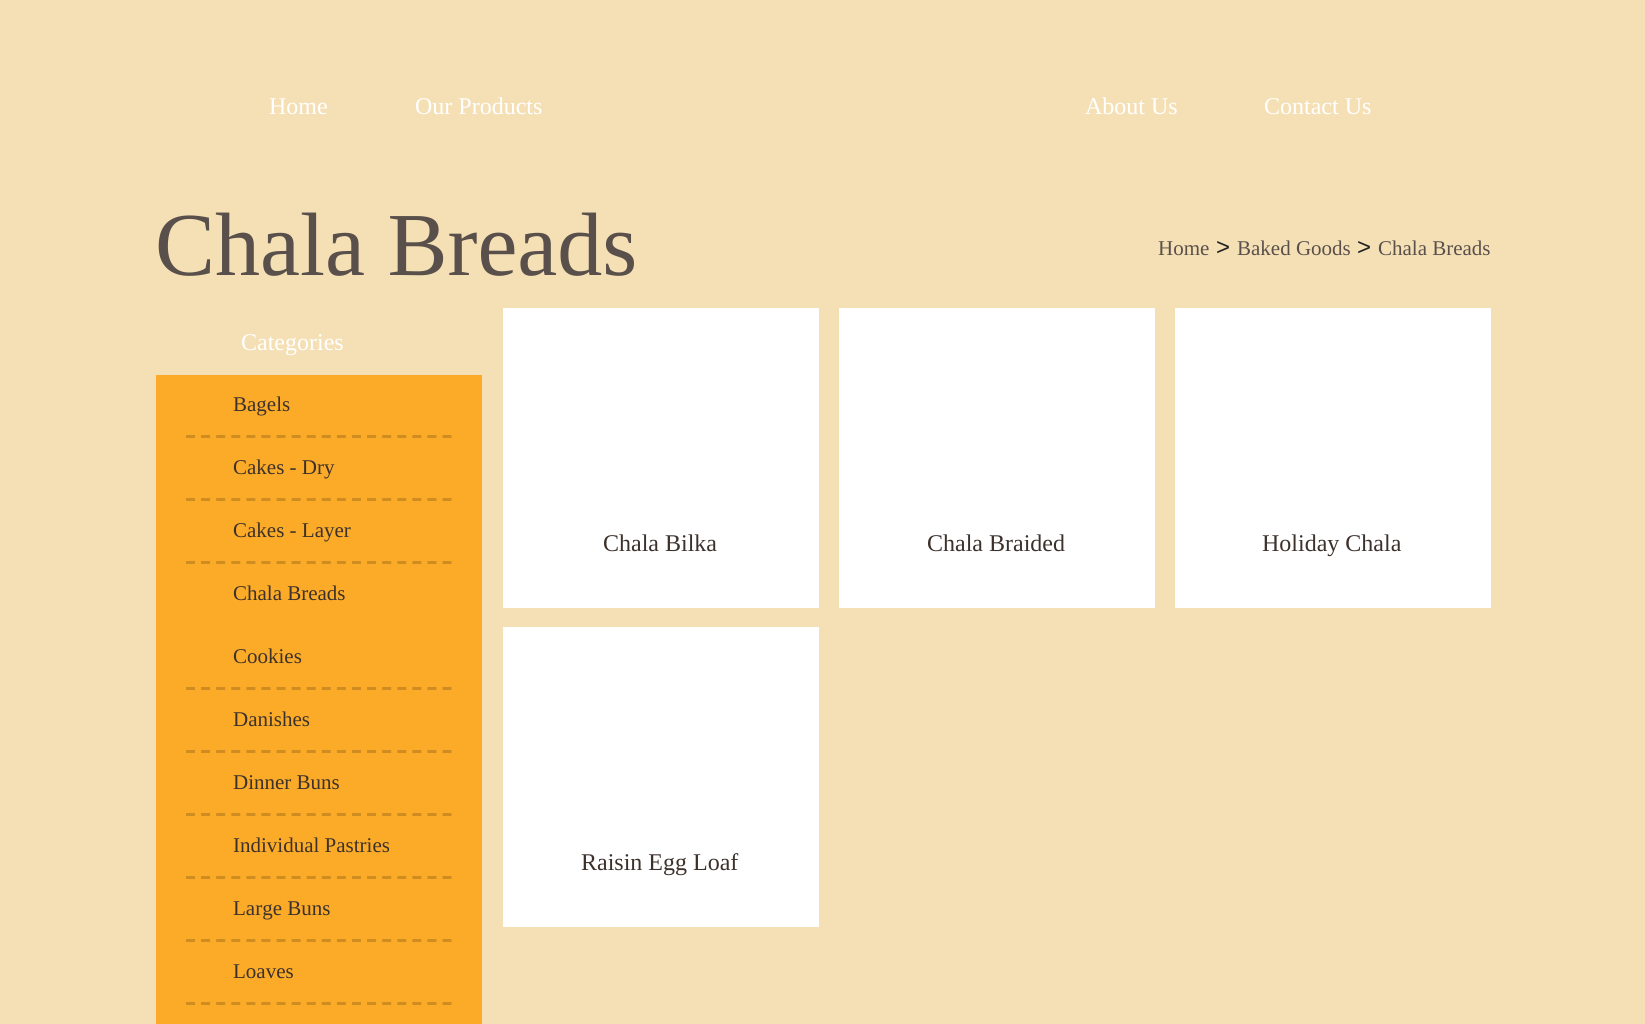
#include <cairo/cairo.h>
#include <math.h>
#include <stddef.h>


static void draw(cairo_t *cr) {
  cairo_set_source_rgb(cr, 245 / 255.0, 224 / 255.0, 181 / 255.0);
  cairo_paint(cr);
  cairo_set_source_rgb(cr, 251 / 255.0, 171 / 255.0, 40 / 255.0);
  cairo_rectangle(cr, 156, 375, 326, 649);
  cairo_fill(cr);
  cairo_new_path(cr);
  cairo_move_to(cr, 186, 436.5);
  cairo_line_to(cr, 451.5, 436.5);
  cairo_set_source_rgb(cr, 206 / 255.0, 140 / 255.0, 33 / 255.0);
  cairo_set_line_width(cr, 3);
  cairo_set_dash(cr, (double[]){9, 6.09}, 2, 0);
  cairo_stroke(cr);
  cairo_new_path(cr);
  cairo_move_to(cr, 186, 499.5);
  cairo_line_to(cr, 451.5, 499.5);
  cairo_stroke(cr);
  cairo_new_path(cr);
  cairo_move_to(cr, 186, 562.5);
  cairo_line_to(cr, 451.5, 562.5);
  cairo_stroke(cr);
  cairo_new_path(cr);
  cairo_move_to(cr, 186, 688.5);
  cairo_line_to(cr, 451.5, 688.5);
  cairo_stroke(cr);
  cairo_new_path(cr);
  cairo_move_to(cr, 186, 751.5);
  cairo_line_to(cr, 451.5, 751.5);
  cairo_stroke(cr);
  cairo_new_path(cr);
  cairo_move_to(cr, 186, 814.5);
  cairo_line_to(cr, 451.5, 814.5);
  cairo_stroke(cr);
  cairo_new_path(cr);
  cairo_move_to(cr, 186, 877.5);
  cairo_line_to(cr, 451.5, 877.5);
  cairo_stroke(cr);
  cairo_new_path(cr);
  cairo_move_to(cr, 186, 940.5);
  cairo_line_to(cr, 451.5, 940.5);
  cairo_stroke(cr);
  cairo_new_path(cr);
  cairo_move_to(cr, 186, 1003.5);
  cairo_line_to(cr, 451.5, 1003.5);
  cairo_stroke(cr);
  cairo_set_source_rgb(cr, 1, 1, 1);
  cairo_rectangle(cr, 503, 308, 316, 300);
  cairo_fill(cr);
  cairo_rectangle(cr, 839, 308, 316, 300);
  cairo_fill(cr);
  cairo_rectangle(cr, 1175, 308, 316, 300);
  cairo_fill(cr);
  cairo_rectangle(cr, 503, 627, 316, 300);
  cairo_fill(cr);
  cairo_select_font_face(cr, "Liberation Serif", CAIRO_FONT_SLANT_NORMAL, CAIRO_FONT_WEIGHT_NORMAL);
  cairo_set_font_size(cr, 24);
  cairo_move_to(cr, 269, 114);
  cairo_show_text(cr, "Home");
  cairo_move_to(cr, 415, 114);
  cairo_show_text(cr, "Our Products");
  cairo_move_to(cr, 1085, 114);
  cairo_show_text(cr, "About Us");
  cairo_move_to(cr, 1264, 114);
  cairo_show_text(cr, "Contact Us");
  cairo_set_font_size(cr, 90);
  cairo_set_source_rgb(cr, 89 / 255.0, 80 / 255.0, 75 / 255.0);
  cairo_move_to(cr, 155, 275);
  cairo_show_text(cr, "Chala Breads");
  cairo_set_font_size(cr, 21);
  cairo_move_to(cr, 1158, 255);
  cairo_show_text(cr, "Home");
  cairo_select_font_face(cr, "Liberation Sans", CAIRO_FONT_SLANT_NORMAL, CAIRO_FONT_WEIGHT_NORMAL);
  cairo_set_font_size(cr, 24);
  cairo_set_source_rgb(cr, 34 / 255.0, 34 / 255.0, 34 / 255.0);
  cairo_move_to(cr, 1216, 255);
  cairo_show_text(cr, ">");
  cairo_select_font_face(cr, "Liberation Serif", CAIRO_FONT_SLANT_NORMAL, CAIRO_FONT_WEIGHT_NORMAL);
  cairo_set_font_size(cr, 21);
  cairo_set_source_rgb(cr, 89 / 255.0, 80 / 255.0, 75 / 255.0);
  cairo_move_to(cr, 1237, 255);
  cairo_show_text(cr, "Baked Goods");
  cairo_select_font_face(cr, "Liberation Sans", CAIRO_FONT_SLANT_NORMAL, CAIRO_FONT_WEIGHT_NORMAL);
  cairo_set_font_size(cr, 24);
  cairo_set_source_rgb(cr, 34 / 255.0, 34 / 255.0, 34 / 255.0);
  cairo_move_to(cr, 1357, 255);
  cairo_show_text(cr, ">");
  cairo_select_font_face(cr, "Liberation Serif", CAIRO_FONT_SLANT_NORMAL, CAIRO_FONT_WEIGHT_NORMAL);
  cairo_set_font_size(cr, 21);
  cairo_set_source_rgb(cr, 89 / 255.0, 80 / 255.0, 75 / 255.0);
  cairo_move_to(cr, 1378, 255);
  cairo_show_text(cr, "Chala Breads");
  cairo_set_font_size(cr, 24);
  cairo_set_source_rgb(cr, 1, 1, 1);
  cairo_move_to(cr, 241, 350);
  cairo_show_text(cr, "Categories");
  cairo_set_font_size(cr, 21);
  cairo_set_source_rgb(cr, 60 / 255.0, 49 / 255.0, 43 / 255.0);
  cairo_move_to(cr, 233, 411);
  cairo_show_text(cr, "Bagels");
  cairo_move_to(cr, 233, 474);
  cairo_show_text(cr, "Cakes - Dry");
  cairo_move_to(cr, 233, 537);
  cairo_show_text(cr, "Cakes - Layer");
  cairo_move_to(cr, 233, 600);
  cairo_show_text(cr, "Chala Breads");
  cairo_move_to(cr, 233, 663);
  cairo_show_text(cr, "Cookies");
  cairo_move_to(cr, 233, 726);
  cairo_show_text(cr, "Danishes");
  cairo_move_to(cr, 233, 789);
  cairo_show_text(cr, "Dinner Buns");
  cairo_move_to(cr, 233, 852);
  cairo_show_text(cr, "Individual Pastries");
  cairo_move_to(cr, 233, 915);
  cairo_show_text(cr, "Large Buns");
  cairo_move_to(cr, 233, 978);
  cairo_show_text(cr, "Loaves");
  cairo_set_font_size(cr, 24);
  cairo_move_to(cr, 603, 551);
  cairo_show_text(cr, "Chala Bilka");
  cairo_move_to(cr, 927, 551);
  cairo_show_text(cr, "Chala Braided");
  cairo_move_to(cr, 1262, 551);
  cairo_show_text(cr, "Holiday Chala");
  cairo_move_to(cr, 581, 870);
  cairo_show_text(cr, "Raisin Egg Loaf");
}

int main(void) {
  cairo_surface_t *surface = cairo_image_surface_create(CAIRO_FORMAT_RGB24, 1645, 1024);
  cairo_t *cr = cairo_create(surface);
  cairo_font_options_t *options = cairo_font_options_create();
  cairo_font_options_set_hint_metrics(options, CAIRO_HINT_METRICS_OFF);
  cairo_font_options_set_hint_style(options, CAIRO_HINT_STYLE_NONE);
  cairo_set_font_options(cr, options);
  cairo_set_miter_limit(cr, 4);
  draw(cr);
  cairo_surface_write_to_png(surface, "out.png");
  cairo_font_options_destroy(options);
  cairo_destroy(cr);
  cairo_surface_destroy(surface);
  return 0;
}
